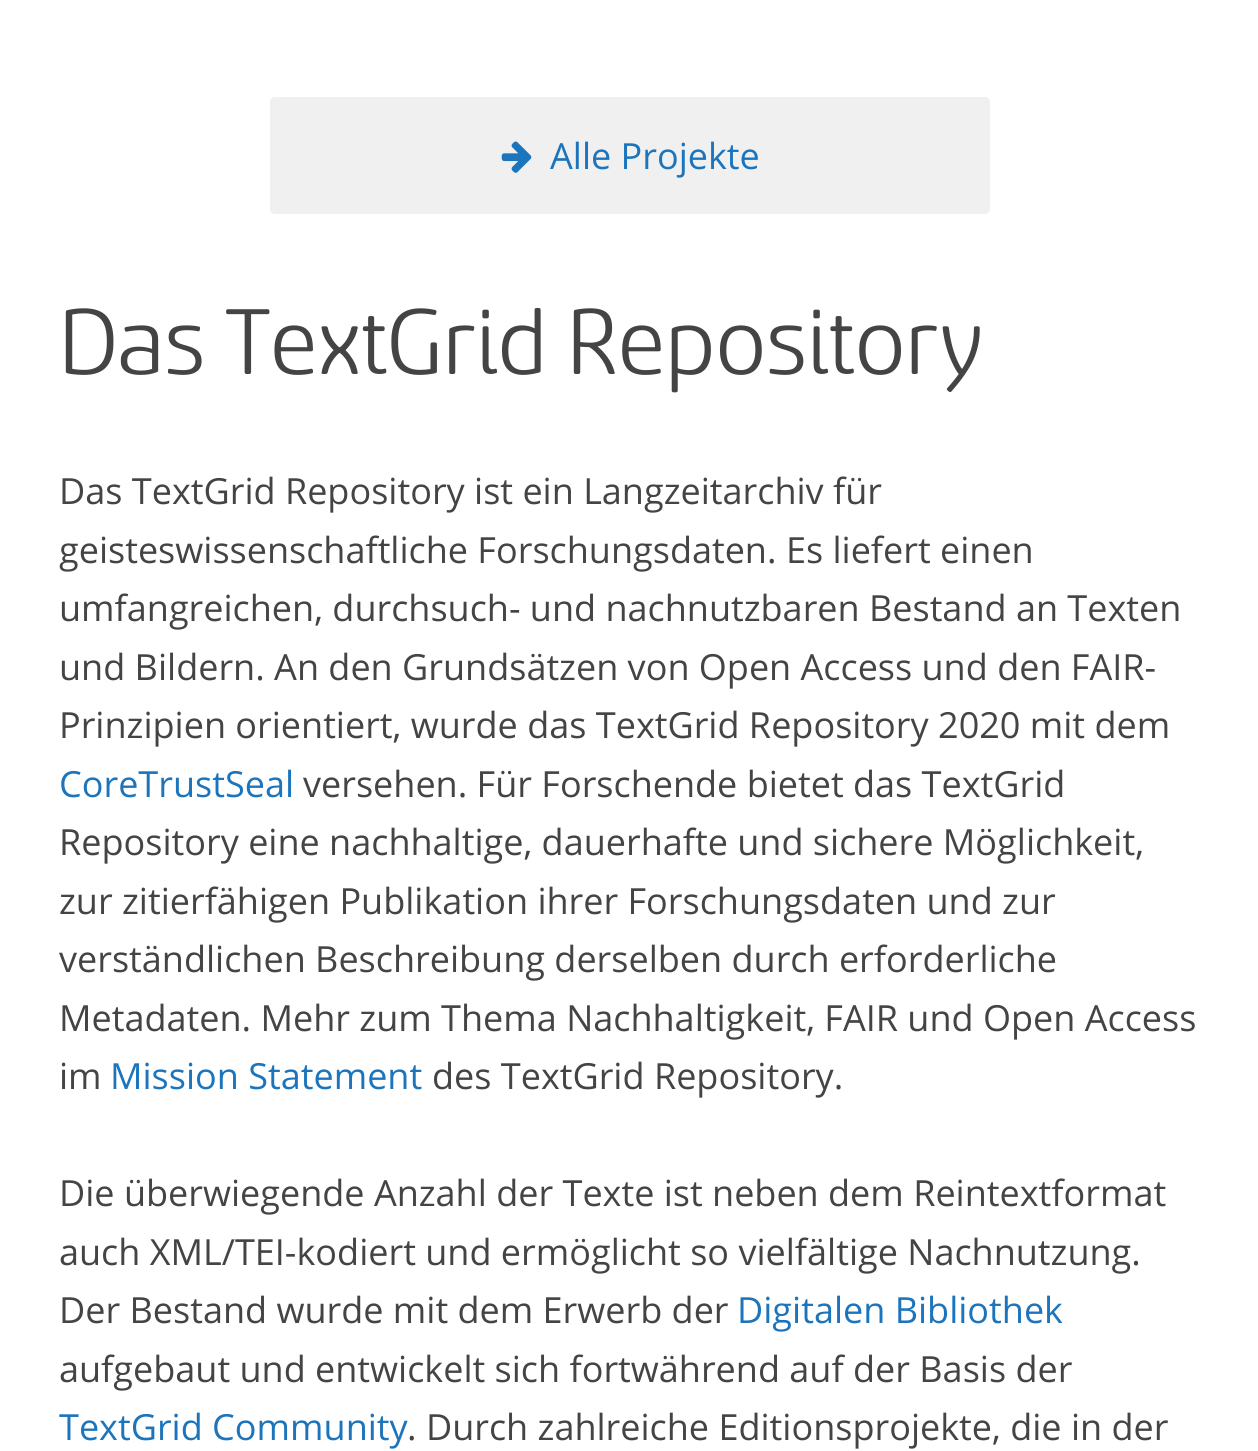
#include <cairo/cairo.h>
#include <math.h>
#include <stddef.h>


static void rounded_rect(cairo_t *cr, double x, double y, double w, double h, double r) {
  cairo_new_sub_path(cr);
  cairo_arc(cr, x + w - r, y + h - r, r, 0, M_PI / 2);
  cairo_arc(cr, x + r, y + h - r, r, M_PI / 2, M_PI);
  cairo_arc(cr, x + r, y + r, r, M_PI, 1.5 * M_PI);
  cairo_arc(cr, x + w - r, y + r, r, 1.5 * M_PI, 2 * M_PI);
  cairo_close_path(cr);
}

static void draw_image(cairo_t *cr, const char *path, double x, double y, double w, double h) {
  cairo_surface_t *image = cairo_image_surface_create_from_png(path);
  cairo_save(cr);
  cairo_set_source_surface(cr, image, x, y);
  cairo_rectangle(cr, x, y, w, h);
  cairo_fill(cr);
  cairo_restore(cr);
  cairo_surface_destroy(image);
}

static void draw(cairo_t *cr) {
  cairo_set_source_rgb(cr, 1, 1, 1);
  cairo_paint(cr);
  cairo_set_source_rgb(cr, 240 / 255.0, 240 / 255.0, 240 / 255.0);
  rounded_rect(cr, 270, 97, 720, 117, 5);
  cairo_fill(cr);
  draw_image(cr, "images/1.png", 501, 141, 31, 32);
  cairo_select_font_face(cr, "Open Sans", CAIRO_FONT_SLANT_NORMAL, CAIRO_FONT_WEIGHT_NORMAL);
  cairo_set_font_size(cr, 36);
  cairo_set_source_rgb(cr, 28 / 255.0, 117 / 255.0, 188 / 255.0);
  cairo_move_to(cr, 550, 169);
  cairo_show_text(cr, "Alle Projekte");
  cairo_select_font_face(cr, "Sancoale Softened", CAIRO_FONT_SLANT_NORMAL, CAIRO_FONT_WEIGHT_NORMAL);
  cairo_set_font_size(cr, 103.5);
  cairo_set_source_rgb(cr, 68 / 255.0, 68 / 255.0, 68 / 255.0);
  cairo_move_to(cr, 59, 374);
  cairo_show_text(cr, "Das TextGrid Repository");
  cairo_select_font_face(cr, "Open Sans", CAIRO_FONT_SLANT_NORMAL, CAIRO_FONT_WEIGHT_NORMAL);
  cairo_set_font_size(cr, 36);
  cairo_move_to(cr, 59, 504);
  cairo_show_text(cr, "Das TextGrid Repository ist ein Langzeitarchiv für");
  cairo_move_to(cr, 59, 563);
  cairo_show_text(cr, "geisteswissenschaftliche Forschungsdaten. Es liefert einen");
  cairo_move_to(cr, 59, 621);
  cairo_show_text(cr, "umfangreichen, durchsuch- und nachnutzbaren Bestand an Texten");
  cairo_move_to(cr, 59, 680);
  cairo_show_text(cr, "und Bildern. An den Grundsätzen von Open Access und den FAIR-");
  cairo_move_to(cr, 59, 738);
  cairo_show_text(cr, "Prinzipien orientiert, wurde das TextGrid Repository 2020 mit dem");
  cairo_set_source_rgb(cr, 28 / 255.0, 117 / 255.0, 188 / 255.0);
  cairo_move_to(cr, 59, 797);
  cairo_show_text(cr, "CoreTrustSeal");
  cairo_set_source_rgb(cr, 68 / 255.0, 68 / 255.0, 68 / 255.0);
  cairo_move_to(cr, 303, 797);
  cairo_show_text(cr, "versehen. Für Forschende bietet das TextGrid");
  cairo_move_to(cr, 59, 855);
  cairo_show_text(cr, "Repository eine nachhaltige, dauerhafte und sichere Möglichkeit,");
  cairo_move_to(cr, 59, 914);
  cairo_show_text(cr, "zur zitierfähigen Publikation ihrer Forschungsdaten und zur");
  cairo_move_to(cr, 59, 972);
  cairo_show_text(cr, "verständlichen Beschreibung derselben durch erforderliche");
  cairo_move_to(cr, 59, 1031);
  cairo_show_text(cr, "Metadaten. Mehr zum Thema Nachhaltigkeit, FAIR und Open Access");
  cairo_move_to(cr, 59, 1089);
  cairo_show_text(cr, "im");
  cairo_set_source_rgb(cr, 28 / 255.0, 117 / 255.0, 188 / 255.0);
  cairo_move_to(cr, 110, 1089);
  cairo_show_text(cr, "Mission Statement");
  cairo_set_source_rgb(cr, 68 / 255.0, 68 / 255.0, 68 / 255.0);
  cairo_move_to(cr, 432, 1089);
  cairo_show_text(cr, "des TextGrid Repository.");
  cairo_move_to(cr, 59, 1206);
  cairo_show_text(cr, "Die überwiegende Anzahl der Texte ist neben dem Reintextformat");
  cairo_move_to(cr, 59, 1265);
  cairo_show_text(cr, "auch XML/TEI-kodiert und ermöglicht so vielfältige Nachnutzung.");
  cairo_move_to(cr, 59, 1323);
  cairo_show_text(cr, "Der Bestand wurde mit dem Erwerb der");
  cairo_set_source_rgb(cr, 28 / 255.0, 117 / 255.0, 188 / 255.0);
  cairo_move_to(cr, 737, 1323);
  cairo_show_text(cr, "Digitalen Bibliothek");
  cairo_set_source_rgb(cr, 68 / 255.0, 68 / 255.0, 68 / 255.0);
  cairo_move_to(cr, 59, 1382);
  cairo_show_text(cr, "aufgebaut und entwickelt sich fortwährend auf der Basis der");
  cairo_set_source_rgb(cr, 28 / 255.0, 117 / 255.0, 188 / 255.0);
  cairo_move_to(cr, 59, 1440);
  cairo_show_text(cr, "TextGrid Community");
  cairo_set_source_rgb(cr, 68 / 255.0, 68 / 255.0, 68 / 255.0);
  cairo_move_to(cr, 407, 1440);
  cairo_show_text(cr, ". Durch zahlreiche Editionsprojekte, die in der");
}

int main(void) {
  cairo_surface_t *surface = cairo_image_surface_create(CAIRO_FORMAT_RGB24, 1258, 1451);
  cairo_t *cr = cairo_create(surface);
  cairo_font_options_t *options = cairo_font_options_create();
  cairo_font_options_set_hint_metrics(options, CAIRO_HINT_METRICS_OFF);
  cairo_font_options_set_hint_style(options, CAIRO_HINT_STYLE_NONE);
  cairo_set_font_options(cr, options);
  cairo_set_miter_limit(cr, 4);
  draw(cr);
  cairo_surface_write_to_png(surface, "out.png");
  cairo_font_options_destroy(options);
  cairo_destroy(cr);
  cairo_surface_destroy(surface);
  return 0;
}
